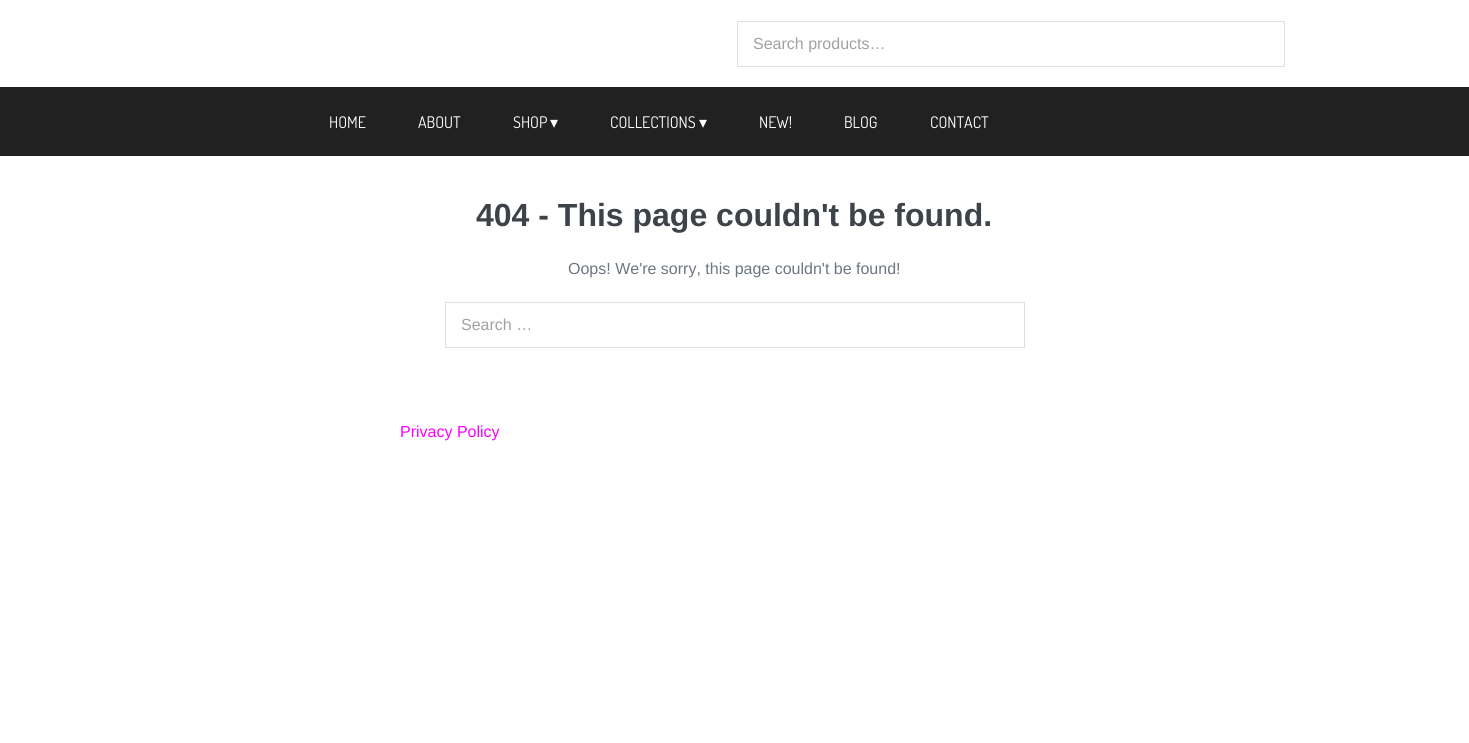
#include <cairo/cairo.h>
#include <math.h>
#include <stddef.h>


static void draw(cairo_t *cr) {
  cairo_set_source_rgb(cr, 1, 1, 1);
  cairo_paint(cr);
  cairo_rectangle(cr, 737.5, 21.5, 547, 45);
  cairo_set_source_rgb(cr, 222 / 255.0, 222 / 255.0, 229 / 255.0);
  cairo_set_line_width(cr, 1);
  cairo_stroke(cr);
  cairo_set_source_rgb(cr, 33 / 255.0, 33 / 255.0, 33 / 255.0);
  cairo_rectangle(cr, 0, 87, 1469, 69);
  cairo_fill(cr);
  cairo_rectangle(cr, 445.5, 302.5, 579, 45);
  cairo_set_source_rgb(cr, 222 / 255.0, 222 / 255.0, 229 / 255.0);
  cairo_stroke(cr);
  cairo_select_font_face(cr, "Liberation Sans", CAIRO_FONT_SLANT_NORMAL, CAIRO_FONT_WEIGHT_NORMAL);
  cairo_set_font_size(cr, 16);
  cairo_set_source_rgb(cr, 159 / 255.0, 161 / 255.0, 164 / 255.0);
  cairo_move_to(cr, 753, 49);
  cairo_show_text(cr, "Search products…");
  cairo_select_font_face(cr, "Dosis", CAIRO_FONT_SLANT_NORMAL, CAIRO_FONT_WEIGHT_NORMAL);
  cairo_set_source_rgb(cr, 1, 1, 1);
  cairo_move_to(cr, 329, 128);
  cairo_show_text(cr, "HOME");
  cairo_move_to(cr, 418, 128);
  cairo_show_text(cr, "ABOUT");
  cairo_move_to(cr, 513, 128);
  cairo_show_text(cr, "SHOP");
  cairo_select_font_face(cr, "DejaVu Sans", CAIRO_FONT_SLANT_NORMAL, CAIRO_FONT_WEIGHT_NORMAL);
  cairo_move_to(cr, 550, 128);
  cairo_show_text(cr, "▾");
  cairo_select_font_face(cr, "Dosis", CAIRO_FONT_SLANT_NORMAL, CAIRO_FONT_WEIGHT_NORMAL);
  cairo_move_to(cr, 610, 128);
  cairo_show_text(cr, "COLLECTIONS");
  cairo_select_font_face(cr, "DejaVu Sans", CAIRO_FONT_SLANT_NORMAL, CAIRO_FONT_WEIGHT_NORMAL);
  cairo_move_to(cr, 699, 128);
  cairo_show_text(cr, "▾");
  cairo_select_font_face(cr, "Dosis", CAIRO_FONT_SLANT_NORMAL, CAIRO_FONT_WEIGHT_NORMAL);
  cairo_move_to(cr, 759, 128);
  cairo_show_text(cr, "NEW!");
  cairo_move_to(cr, 844, 128);
  cairo_show_text(cr, "BLOG");
  cairo_move_to(cr, 930, 128);
  cairo_show_text(cr, "CONTACT");
  cairo_select_font_face(cr, "Liberation Sans", CAIRO_FONT_SLANT_NORMAL, CAIRO_FONT_WEIGHT_BOLD);
  cairo_set_font_size(cr, 32);
  cairo_set_source_rgb(cr, 62 / 255.0, 67 / 255.0, 73 / 255.0);
  cairo_move_to(cr, 476, 226);
  cairo_show_text(cr, "404 - This page couldn't be found.");
  cairo_select_font_face(cr, "Liberation Sans", CAIRO_FONT_SLANT_NORMAL, CAIRO_FONT_WEIGHT_NORMAL);
  cairo_set_font_size(cr, 16);
  cairo_set_source_rgb(cr, 109 / 255.0, 118 / 255.0, 128 / 255.0);
  cairo_move_to(cr, 568, 274);
  cairo_show_text(cr, "Oops! We're sorry, this page couldn't be found!");
  cairo_set_source_rgb(cr, 159 / 255.0, 161 / 255.0, 164 / 255.0);
  cairo_move_to(cr, 461, 330);
  cairo_show_text(cr, "Search …");
  cairo_set_source_rgb(cr, 1, 0, 1);
  cairo_move_to(cr, 400, 437);
  cairo_show_text(cr, "Privacy Policy");
}

int main(void) {
  cairo_surface_t *surface = cairo_image_surface_create(CAIRO_FORMAT_RGB24, 1469, 743);
  cairo_t *cr = cairo_create(surface);
  cairo_font_options_t *options = cairo_font_options_create();
  cairo_font_options_set_hint_metrics(options, CAIRO_HINT_METRICS_OFF);
  cairo_font_options_set_hint_style(options, CAIRO_HINT_STYLE_NONE);
  cairo_set_font_options(cr, options);
  cairo_set_miter_limit(cr, 4);
  draw(cr);
  cairo_surface_write_to_png(surface, "out.png");
  cairo_font_options_destroy(options);
  cairo_destroy(cr);
  cairo_surface_destroy(surface);
  return 0;
}
